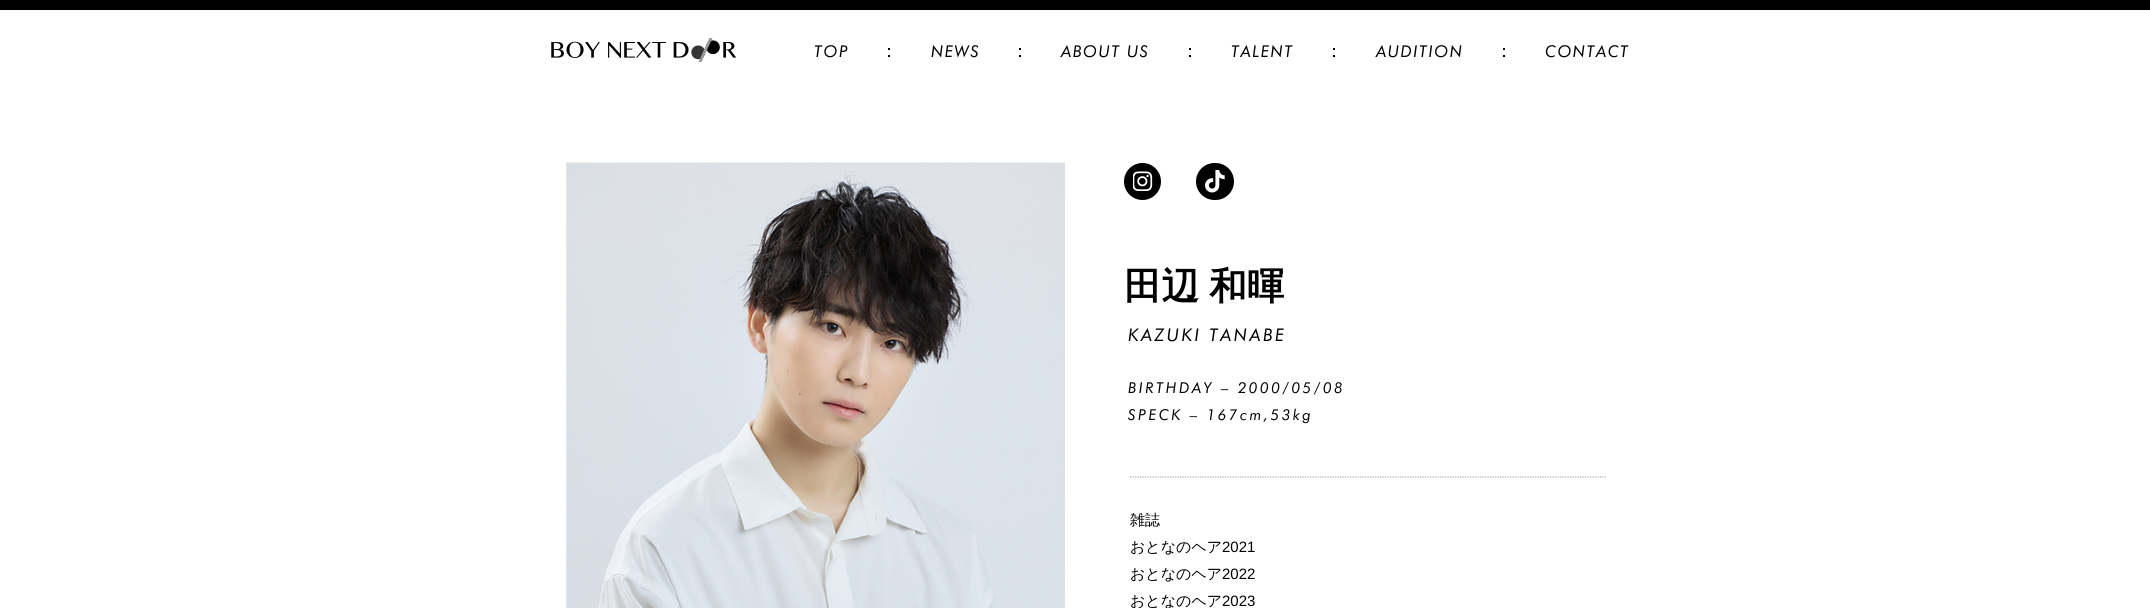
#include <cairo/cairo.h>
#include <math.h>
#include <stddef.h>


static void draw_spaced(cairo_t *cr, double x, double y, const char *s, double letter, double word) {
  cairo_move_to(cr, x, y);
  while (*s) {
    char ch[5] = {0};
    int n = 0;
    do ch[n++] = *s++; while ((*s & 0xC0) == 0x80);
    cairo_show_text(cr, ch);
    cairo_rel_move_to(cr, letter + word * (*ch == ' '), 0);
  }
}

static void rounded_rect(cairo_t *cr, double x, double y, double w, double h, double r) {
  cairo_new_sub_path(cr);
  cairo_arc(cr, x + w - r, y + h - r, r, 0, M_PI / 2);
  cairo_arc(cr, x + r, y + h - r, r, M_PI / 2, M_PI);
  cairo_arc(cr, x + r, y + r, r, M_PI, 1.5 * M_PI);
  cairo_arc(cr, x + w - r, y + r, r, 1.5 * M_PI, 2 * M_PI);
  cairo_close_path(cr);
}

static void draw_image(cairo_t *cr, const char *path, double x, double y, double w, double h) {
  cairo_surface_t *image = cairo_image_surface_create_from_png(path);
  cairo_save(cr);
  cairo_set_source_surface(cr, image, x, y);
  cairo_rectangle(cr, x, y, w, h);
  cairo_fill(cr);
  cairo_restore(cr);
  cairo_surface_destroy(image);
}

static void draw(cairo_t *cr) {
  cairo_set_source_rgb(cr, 1, 1, 1);
  cairo_paint(cr);
  cairo_set_source_rgb(cr, 0, 0, 0);
  cairo_rectangle(cr, 0, 0, 2150, 10);
  cairo_fill(cr);
  draw_image(cr, "images/1.png", 551, 38, 185, 24);
  cairo_rectangle(cr, 888, 48, 2, 2);
  cairo_fill(cr);
  cairo_rectangle(cr, 888, 55, 2, 2);
  cairo_fill(cr);
  cairo_rectangle(cr, 1019, 48, 2, 2);
  cairo_fill(cr);
  cairo_rectangle(cr, 1019, 55, 2, 2);
  cairo_fill(cr);
  cairo_rectangle(cr, 1189, 48, 2, 2);
  cairo_fill(cr);
  cairo_rectangle(cr, 1189, 55, 2, 2);
  cairo_fill(cr);
  cairo_rectangle(cr, 1333, 48, 2, 2);
  cairo_fill(cr);
  cairo_rectangle(cr, 1333, 55, 2, 2);
  cairo_fill(cr);
  cairo_rectangle(cr, 1503, 48, 2, 2);
  cairo_fill(cr);
  cairo_rectangle(cr, 1503, 55, 2, 2);
  cairo_fill(cr);
  draw_image(cr, "images/2.png", 566, 162, 499, 446);
  cairo_arc(cr, 1142.5, 181.5, 18.5, 0, 2 * M_PI);
  cairo_fill(cr);
  draw_image(cr, "images/3.png", 1133, 171, 20, 20);
  rounded_rect(cr, 1196, 163, 38, 37, 18.5);
  cairo_fill(cr);
  draw_image(cr, "images/4.png", 1205, 170, 20, 23);
  cairo_new_path(cr);
  cairo_move_to(cr, 1130, 477);
  cairo_line_to(cr, 1606, 477);
  cairo_set_source_rgb(cr, 171 / 255.0, 171 / 255.0, 171 / 255.0);
  cairo_set_line_width(cr, 1.2);
  cairo_set_dash(cr, (double[]){1.25, 1.25}, 2, 0);
  cairo_stroke(cr);
  cairo_select_font_face(cr, "Futura", CAIRO_FONT_SLANT_ITALIC, CAIRO_FONT_WEIGHT_NORMAL);
  cairo_set_font_size(cr, 16.25);
  cairo_set_source_rgb(cr, 0, 0, 0);
  draw_spaced(cr, 814, 57, "TOP", 1.5, 0);
  draw_spaced(cr, 931, 57, "NEWS", 1.5, 0);
  draw_spaced(cr, 1061, 57, "ABOUT US", 1.5, 0);
  draw_spaced(cr, 1231, 57, "TALENT", 1.5, 0);
  draw_spaced(cr, 1376, 57, "AUDITION", 1.5, 0);
  draw_spaced(cr, 1545, 57, "CONTACT", 1.5, 0);
  cairo_select_font_face(cr, "WenQuanYi Zen Hei", CAIRO_FONT_SLANT_NORMAL, CAIRO_FONT_WEIGHT_BOLD);
  cairo_set_font_size(cr, 37.5);
  draw_spaced(cr, 1124, 299, "田辺 和暉", 0, -1);
  cairo_select_font_face(cr, "Futura", CAIRO_FONT_SLANT_ITALIC, CAIRO_FONT_WEIGHT_NORMAL);
  cairo_set_font_size(cr, 17.5);
  draw_spaced(cr, 1128, 341, "KAZUKI TANABE", 2.5, 0);
  cairo_set_font_size(cr, 15);
  draw_spaced(cr, 1128, 393, "BIRTHDAY – 2000/05/08", 2.5, 0);
  draw_spaced(cr, 1128, 420, "SPECK – 167cm,53kg", 2.5, 0);
  cairo_select_font_face(cr, "WenQuanYi Zen Hei Medium", CAIRO_FONT_SLANT_NORMAL, CAIRO_FONT_WEIGHT_NORMAL);
  cairo_move_to(cr, 1130, 525);
  cairo_show_text(cr, "雑誌");
  cairo_move_to(cr, 1130, 552);
  cairo_show_text(cr, "おとなのヘア");
  cairo_select_font_face(cr, "Liberation Sans", CAIRO_FONT_SLANT_NORMAL, CAIRO_FONT_WEIGHT_NORMAL);
  cairo_move_to(cr, 1222, 552);
  cairo_show_text(cr, "2021");
  cairo_select_font_face(cr, "WenQuanYi Zen Hei Medium", CAIRO_FONT_SLANT_NORMAL, CAIRO_FONT_WEIGHT_NORMAL);
  cairo_move_to(cr, 1130, 579);
  cairo_show_text(cr, "おとなのヘア");
  cairo_select_font_face(cr, "Liberation Sans", CAIRO_FONT_SLANT_NORMAL, CAIRO_FONT_WEIGHT_NORMAL);
  cairo_move_to(cr, 1222, 579);
  cairo_show_text(cr, "2022");
  cairo_select_font_face(cr, "WenQuanYi Zen Hei Medium", CAIRO_FONT_SLANT_NORMAL, CAIRO_FONT_WEIGHT_NORMAL);
  cairo_move_to(cr, 1130, 606);
  cairo_show_text(cr, "おとなのヘア");
  cairo_select_font_face(cr, "Liberation Sans", CAIRO_FONT_SLANT_NORMAL, CAIRO_FONT_WEIGHT_NORMAL);
  cairo_move_to(cr, 1222, 606);
  cairo_show_text(cr, "2023");
}

int main(void) {
  cairo_surface_t *surface = cairo_image_surface_create(CAIRO_FORMAT_RGB24, 2150, 608);
  cairo_t *cr = cairo_create(surface);
  cairo_font_options_t *options = cairo_font_options_create();
  cairo_font_options_set_hint_metrics(options, CAIRO_HINT_METRICS_OFF);
  cairo_font_options_set_hint_style(options, CAIRO_HINT_STYLE_NONE);
  cairo_set_font_options(cr, options);
  cairo_set_miter_limit(cr, 4);
  draw(cr);
  cairo_surface_write_to_png(surface, "out.png");
  cairo_font_options_destroy(options);
  cairo_destroy(cr);
  cairo_surface_destroy(surface);
  return 0;
}
